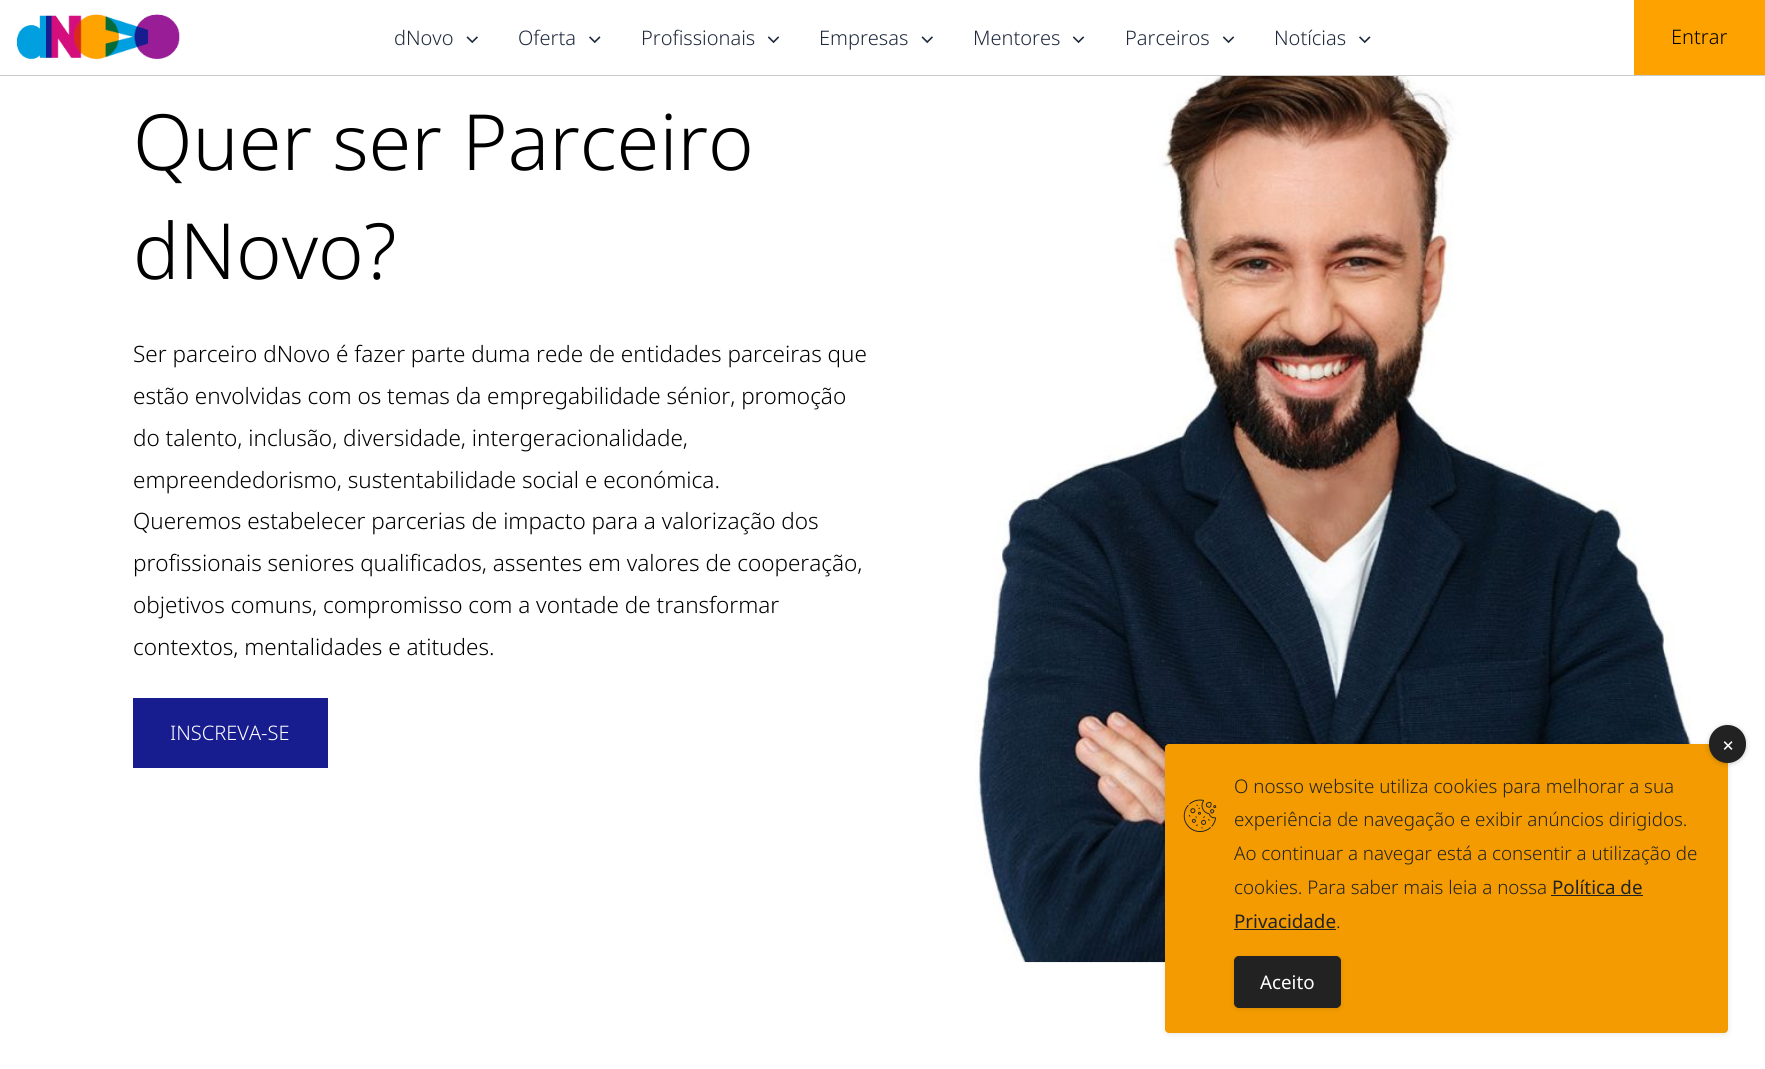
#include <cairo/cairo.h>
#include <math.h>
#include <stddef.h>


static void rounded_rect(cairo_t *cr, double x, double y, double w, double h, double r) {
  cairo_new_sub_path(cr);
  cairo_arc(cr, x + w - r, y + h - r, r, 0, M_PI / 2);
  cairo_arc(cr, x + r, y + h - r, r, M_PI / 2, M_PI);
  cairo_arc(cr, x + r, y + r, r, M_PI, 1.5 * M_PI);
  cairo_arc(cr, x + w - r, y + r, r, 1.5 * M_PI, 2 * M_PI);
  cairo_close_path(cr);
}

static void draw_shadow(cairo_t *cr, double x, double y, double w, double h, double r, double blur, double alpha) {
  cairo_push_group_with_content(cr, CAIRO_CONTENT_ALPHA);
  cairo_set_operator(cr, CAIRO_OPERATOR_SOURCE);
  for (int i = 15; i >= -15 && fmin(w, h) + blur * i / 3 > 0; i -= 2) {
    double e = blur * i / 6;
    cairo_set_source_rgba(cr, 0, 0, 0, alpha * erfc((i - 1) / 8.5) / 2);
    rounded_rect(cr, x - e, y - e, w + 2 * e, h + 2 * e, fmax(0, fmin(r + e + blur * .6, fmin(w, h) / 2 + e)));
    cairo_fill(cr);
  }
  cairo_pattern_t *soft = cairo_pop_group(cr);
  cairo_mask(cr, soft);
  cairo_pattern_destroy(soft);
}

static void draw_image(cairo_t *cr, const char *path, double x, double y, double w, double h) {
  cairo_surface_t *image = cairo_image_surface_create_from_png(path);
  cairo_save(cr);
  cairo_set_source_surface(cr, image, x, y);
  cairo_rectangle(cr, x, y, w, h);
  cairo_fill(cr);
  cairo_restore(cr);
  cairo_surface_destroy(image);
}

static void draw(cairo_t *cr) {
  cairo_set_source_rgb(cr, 1, 1, 1);
  cairo_paint(cr);
  cairo_set_source_rgb(cr, 203 / 255.0, 203 / 255.0, 203 / 255.0);
  cairo_rectangle(cr, 0, 75, 1765, 1);
  cairo_fill(cr);
  draw_image(cr, "images/1.png", 16, 14, 164, 46);
  draw_image(cr, "images/2.png", 466, 36, 12, 8);
  draw_image(cr, "images/3.png", 589, 36, 12, 8);
  draw_image(cr, "images/4.png", 768, 36, 12, 8);
  draw_image(cr, "images/2.png", 921, 36, 12, 8);
  draw_image(cr, "images/4.png", 1073, 36, 12, 8);
  draw_image(cr, "images/5.png", 1223, 36, 11, 8);
  draw_image(cr, "images/3.png", 1359, 36, 12, 8);
  cairo_set_source_rgb(cr, 254 / 255.0, 162 / 255.0, 0);
  cairo_rectangle(cr, 1634, 0, 131, 75);
  cairo_fill(cr);
  cairo_set_source_rgb(cr, 23 / 255.0, 28 / 255.0, 143 / 255.0);
  cairo_rectangle(cr, 133, 698, 195, 70);
  cairo_fill(cr);
  draw_image(cr, "images/6.png", 975, 76, 744, 887);
  cairo_set_source_rgb(cr, 0, 0, 0);
  draw_shadow(cr, 1165, 745, 563, 289, 4, 3, 0.1);
  cairo_set_source_rgb(cr, 243 / 255.0, 155 / 255.0, 0);
  rounded_rect(cr, 1165, 744, 563, 289, 4);
  cairo_fill(cr);
  cairo_set_source_rgb(cr, 0, 0, 0);
  draw_shadow(cr, 1709, 726, 37, 38, 18.5, 2.5, 0.2);
  cairo_set_source_rgb(cr, 34 / 255.0, 34 / 255.0, 34 / 255.0);
  rounded_rect(cr, 1709, 725, 37, 38, 18.5);
  cairo_fill(cr);
  draw_image(cr, "images/7.png", 1723, 741, 10, 9);
  draw_image(cr, "images/8.png", 1183, 799, 34, 33);
  cairo_rectangle(cr, 1551, 895, 92, 1);
  cairo_fill(cr);
  cairo_rectangle(cr, 1234, 929, 102, 1);
  cairo_fill(cr);
  cairo_set_source_rgb(cr, 0, 0, 0);
  draw_shadow(cr, 1234, 958, 107, 51, 5, 2.5, 0.1);
  cairo_set_source_rgb(cr, 34 / 255.0, 34 / 255.0, 34 / 255.0);
  rounded_rect(cr, 1234.5, 956.5, 106, 51, 4.5);
  cairo_fill_preserve(cr);
  cairo_set_line_width(cr, 1);
  cairo_stroke(cr);
  cairo_select_font_face(cr, "Noto Sans Light", CAIRO_FONT_SLANT_NORMAL, CAIRO_FONT_WEIGHT_NORMAL);
  cairo_set_font_size(cr, 20);
  cairo_set_source_rgb(cr, 30 / 255.0, 41 / 255.0, 59 / 255.0);
  cairo_move_to(cr, 394, 45);
  cairo_show_text(cr, "dNovo");
  cairo_move_to(cr, 518, 45);
  cairo_show_text(cr, "Oferta");
  cairo_move_to(cr, 641, 45);
  cairo_show_text(cr, "Profissionais");
  cairo_move_to(cr, 819, 45);
  cairo_show_text(cr, "Empresas");
  cairo_move_to(cr, 973, 45);
  cairo_show_text(cr, "Mentores");
  cairo_move_to(cr, 1125, 45);
  cairo_show_text(cr, "Parceiros");
  cairo_move_to(cr, 1274, 45);
  cairo_show_text(cr, "Notícias");
  cairo_set_source_rgb(cr, 0, 0, 0);
  cairo_move_to(cr, 1671, 44);
  cairo_show_text(cr, "Entrar");
  cairo_set_font_size(cr, 77.5);
  cairo_move_to(cr, 133, 170);
  cairo_show_text(cr, "Quer ser Parceiro");
  cairo_move_to(cr, 133, 279);
  cairo_show_text(cr, "dNovo?");
  cairo_set_font_size(cr, 22.5);
  cairo_move_to(cr, 133, 362);
  cairo_show_text(cr, "Ser parceiro dNovo é fazer parte duma rede de entidades parceiras que");
  cairo_move_to(cr, 133, 404);
  cairo_show_text(cr, "estão envolvidas com os temas da empregabilidade sénior, promoção");
  cairo_move_to(cr, 133, 446);
  cairo_show_text(cr, "do talento, inclusão, diversidade, intergeracionalidade,");
  cairo_move_to(cr, 133, 488);
  cairo_show_text(cr, "empreendedorismo, sustentabilidade social e económica.");
  cairo_move_to(cr, 133, 529);
  cairo_show_text(cr, "Queremos estabelecer parcerias de impacto para a valorização dos");
  cairo_move_to(cr, 133, 571);
  cairo_show_text(cr, "profissionais seniores qualificados, assentes em valores de cooperação,");
  cairo_move_to(cr, 133, 613);
  cairo_show_text(cr, "objetivos comuns, compromisso com a vontade de transformar");
  cairo_move_to(cr, 133, 655);
  cairo_show_text(cr, "contextos, mentalidades e atitudes.");
  cairo_set_font_size(cr, 20);
  cairo_set_source_rgb(cr, 1, 1, 1);
  cairo_move_to(cr, 170, 740);
  cairo_show_text(cr, "INSCREVA-SE");
  cairo_set_font_size(cr, 18.75);
  cairo_set_source_rgb(cr, 34 / 255.0, 34 / 255.0, 34 / 255.0);
  cairo_move_to(cr, 1234, 793);
  cairo_show_text(cr, "O nosso website utiliza cookies para melhorar a sua");
  cairo_move_to(cr, 1234, 826);
  cairo_show_text(cr, "experiência de navegação e exibir anúncios dirigidos.");
  cairo_move_to(cr, 1234, 860);
  cairo_show_text(cr, "Ao continuar a navegar está a consentir a utilização de");
  cairo_move_to(cr, 1234, 894);
  cairo_show_text(cr, "cookies. Para saber mais leia a nossa");
  cairo_select_font_face(cr, "Noto Sans", CAIRO_FONT_SLANT_NORMAL, CAIRO_FONT_WEIGHT_NORMAL);
  cairo_move_to(cr, 1552, 894);
  cairo_show_text(cr, "Política de");
  cairo_move_to(cr, 1234, 928);
  cairo_show_text(cr, "Privacidade");
  cairo_select_font_face(cr, "Noto Sans Light", CAIRO_FONT_SLANT_NORMAL, CAIRO_FONT_WEIGHT_NORMAL);
  cairo_move_to(cr, 1336, 928);
  cairo_show_text(cr, ".");
  cairo_select_font_face(cr, "Noto Sans", CAIRO_FONT_SLANT_NORMAL, CAIRO_FONT_WEIGHT_NORMAL);
  cairo_set_source_rgb(cr, 1, 1, 1);
  cairo_move_to(cr, 1260, 989);
  cairo_show_text(cr, "Aceito");
}

int main(void) {
  cairo_surface_t *surface = cairo_image_surface_create(CAIRO_FORMAT_RGB24, 1765, 1069);
  cairo_t *cr = cairo_create(surface);
  cairo_font_options_t *options = cairo_font_options_create();
  cairo_font_options_set_hint_metrics(options, CAIRO_HINT_METRICS_OFF);
  cairo_font_options_set_hint_style(options, CAIRO_HINT_STYLE_NONE);
  cairo_set_font_options(cr, options);
  cairo_set_miter_limit(cr, 4);
  draw(cr);
  cairo_surface_write_to_png(surface, "out.png");
  cairo_font_options_destroy(options);
  cairo_destroy(cr);
  cairo_surface_destroy(surface);
  return 0;
}
